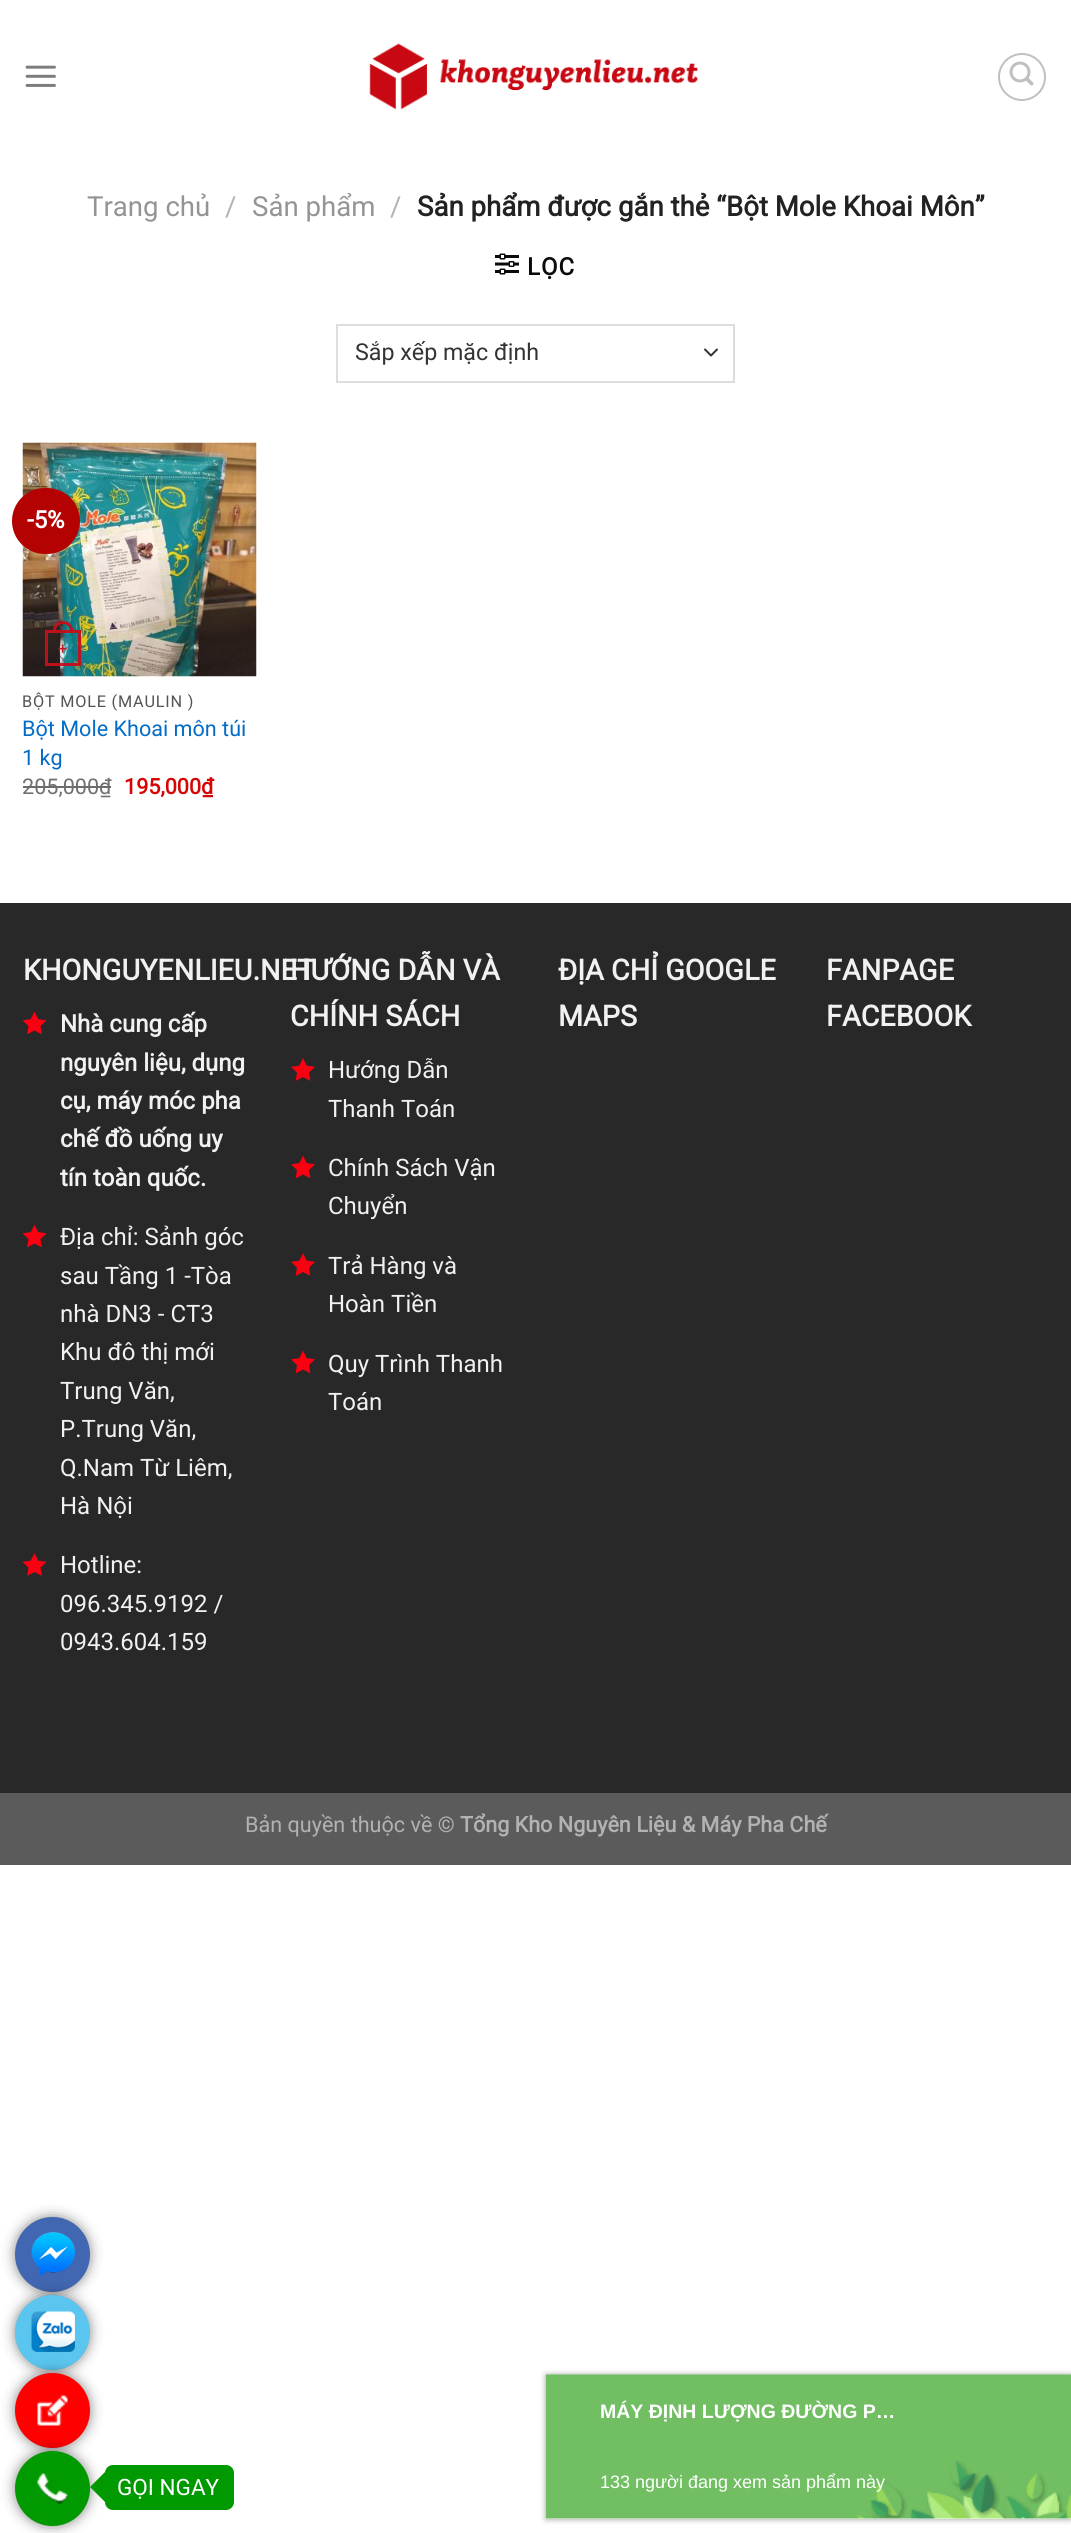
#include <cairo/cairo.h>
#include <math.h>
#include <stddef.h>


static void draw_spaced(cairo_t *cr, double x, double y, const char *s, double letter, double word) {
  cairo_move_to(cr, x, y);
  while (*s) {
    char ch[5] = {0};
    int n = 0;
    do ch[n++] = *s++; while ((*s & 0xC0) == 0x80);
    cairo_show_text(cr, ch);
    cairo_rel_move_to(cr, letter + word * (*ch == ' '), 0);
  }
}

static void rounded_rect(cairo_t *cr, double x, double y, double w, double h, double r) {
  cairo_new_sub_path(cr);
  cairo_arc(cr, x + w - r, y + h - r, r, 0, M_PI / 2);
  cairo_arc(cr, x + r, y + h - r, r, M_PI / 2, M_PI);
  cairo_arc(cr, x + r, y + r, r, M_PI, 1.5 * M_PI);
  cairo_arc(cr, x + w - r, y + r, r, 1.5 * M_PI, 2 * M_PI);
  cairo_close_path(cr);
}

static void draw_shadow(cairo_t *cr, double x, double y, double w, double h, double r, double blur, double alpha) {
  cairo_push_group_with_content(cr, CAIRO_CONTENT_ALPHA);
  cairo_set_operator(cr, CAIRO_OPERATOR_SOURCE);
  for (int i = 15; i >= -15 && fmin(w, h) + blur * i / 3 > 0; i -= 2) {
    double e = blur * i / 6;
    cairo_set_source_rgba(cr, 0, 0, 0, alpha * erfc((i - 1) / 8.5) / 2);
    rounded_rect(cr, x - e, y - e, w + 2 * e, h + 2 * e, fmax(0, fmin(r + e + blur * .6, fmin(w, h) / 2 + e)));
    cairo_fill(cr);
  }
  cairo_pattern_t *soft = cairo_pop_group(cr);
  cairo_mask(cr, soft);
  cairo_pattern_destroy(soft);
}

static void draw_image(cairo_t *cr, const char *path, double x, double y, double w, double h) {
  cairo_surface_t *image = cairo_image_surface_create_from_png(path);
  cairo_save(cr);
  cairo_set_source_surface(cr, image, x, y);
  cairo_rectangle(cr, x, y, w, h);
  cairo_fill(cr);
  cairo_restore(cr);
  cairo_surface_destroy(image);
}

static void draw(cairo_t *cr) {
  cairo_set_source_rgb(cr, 1, 1, 1);
  cairo_paint(cr);
  draw_image(cr, "images/1.png", 25, 65, 31, 22);
  draw_image(cr, "images/2.png", 369, 43, 329, 67);
  cairo_arc(cr, 1022, 77, 23, 0, 2 * M_PI);
  cairo_set_source_rgb(cr, 192 / 255.0, 192 / 255.0, 192 / 255.0);
  cairo_stroke(cr);
  draw_image(cr, "images/3.png", 1009, 61, 25, 25);
  draw_image(cr, "images/4.png", 495, 253, 24, 22);
  cairo_new_path(cr);
  cairo_move_to(cr, 705, 349.5);
  cairo_line_to(cr, 711, 355.5);
  cairo_line_to(cr, 717, 349.5);
  cairo_set_source_rgb(cr, 51 / 255.0, 51 / 255.0, 51 / 255.0);
  cairo_set_line_cap(cr, CAIRO_LINE_CAP_ROUND);
  cairo_set_line_join(cr, CAIRO_LINE_JOIN_ROUND);
  cairo_stroke(cr);
  cairo_rectangle(cr, 337, 325, 397, 57);
  cairo_set_source_rgb(cr, 221 / 255.0, 221 / 255.0, 221 / 255.0);
  cairo_set_line_cap(cr, CAIRO_LINE_CAP_BUTT);
  cairo_set_line_join(cr, CAIRO_LINE_JOIN_MITER);
  cairo_stroke(cr);
  draw_image(cr, "images/5.png", 22, 442, 235, 235);
  cairo_set_source_rgb(cr, 180 / 255.0, 2 / 255.0, 2 / 255.0);
  rounded_rect(cr, 12, 488, 68, 66, 33);
  cairo_fill(cr);
  cairo_rectangle(cr, 46.5, 631.5, 33, 33);
  cairo_set_source_rgba(cr, 198 / 255.0, 15 / 255.0, 29 / 255.0, 0.95);
  cairo_set_line_width(cr, 3);
  cairo_stroke(cr);
  cairo_set_fill_rule(cr, CAIRO_FILL_RULE_EVEN_ODD);
  cairo_new_path(cr);
  cairo_move_to(cr, 63, 621);
  cairo_curve_to(cr, 70, 621, 73.5, 626.5, 73.5, 633);
  cairo_line_to(cr, 52.5, 633);
  cairo_curve_to(cr, 52.5, 626.5, 56, 621, 63, 621);
  cairo_close_path(cr);
  cairo_move_to(cr, 63, 624);
  cairo_curve_to(cr, 68.5, 624, 70.5, 628.5, 70.5, 633);
  cairo_line_to(cr, 55.5, 633);
  cairo_curve_to(cr, 55.5, 628.5, 57.5, 624, 63, 624);
  cairo_close_path(cr);
  cairo_fill(cr);
  cairo_set_source_rgb(cr, 40 / 255.0, 40 / 255.0, 40 / 255.0);
  cairo_rectangle(cr, 0, 903, 1071, 890);
  cairo_fill(cr);
  draw_image(cr, "images/6.png", 22, 1011, 25, 24);
  draw_image(cr, "images/6.png", 22, 1224, 25, 24);
  draw_image(cr, "images/7.png", 22, 1553, 25, 23);
  draw_image(cr, "images/8.png", 291, 1058, 24, 23);
  draw_image(cr, "images/9.png", 291, 1155, 24, 24);
  draw_image(cr, "images/8.png", 291, 1253, 24, 23);
  draw_image(cr, "images/9.png", 291, 1350, 24, 24);
  cairo_set_source_rgb(cr, 91 / 255.0, 91 / 255.0, 91 / 255.0);
  cairo_rectangle(cr, 0, 1793, 1071, 72);
  cairo_fill(cr);
  cairo_set_source_rgb(cr, 0, 0, 0);
  draw_shadow(cr, 18, 2220, 69, 69, 34.5, 7.5, 0.7);
  cairo_set_source_rgb(cr, 66 / 255.0, 103 / 255.0, 178 / 255.0);
  cairo_arc(cr, 52.5, 2254.5, 37.5, 0, 2 * M_PI);
  cairo_fill(cr);
  cairo_set_source_rgb(cr, 0, 0, 0);
  draw_shadow(cr, 18, 2298, 69, 69, 34.5, 7.5, 0.7);
  draw_image(cr, "images/10.png", 31, 2232, 44, 44);
  cairo_set_source_rgb(cr, 90 / 255.0, 197 / 255.0, 239 / 255.0);
  cairo_arc(cr, 52.5, 2332.5, 37.5, 0, 2 * M_PI);
  cairo_fill(cr);
  draw_image(cr, "images/11.png", 31, 2311, 44, 41);
  cairo_set_source_rgb(cr, 0, 0, 0);
  draw_shadow(cr, 18, 2376, 69, 69, 34.5, 7.5, 0.7);
  cairo_set_source_rgb(cr, 1, 0, 0);
  cairo_arc(cr, 52.5, 2410.5, 37.5, 0, 2 * M_PI);
  cairo_fill(cr);
  draw_image(cr, "images/12.png", 37, 2395, 31, 31);
  cairo_set_source_rgb(cr, 0, 0, 0);
  draw_shadow(cr, 18, 2454, 69, 69, 34.5, 7.5, 0.7);
  cairo_set_source_rgb(cr, 0, 153 / 255.0, 0);
  cairo_arc(cr, 52.5, 2488.5, 37.5, 0, 2 * M_PI);
  cairo_fill(cr);
  draw_image(cr, "images/13.png", 37, 2473, 31, 31);
  rounded_rect(cr, 105, 2465, 129, 45, 8);
  cairo_fill(cr);
  cairo_set_fill_rule(cr, CAIRO_FILL_RULE_WINDING);
  cairo_new_path(cr);
  cairo_move_to(cr, 105, 2472);
  cairo_line_to(cr, 105, 2502);
  cairo_line_to(cr, 90, 2487);
  cairo_close_path(cr);
  cairo_fill(cr);
  cairo_set_source_rgb(cr, 0, 0, 0);
  draw_shadow(cr, 546, 2375, 525, 144, 0, 3, 0.4);
  cairo_set_source_rgb(cr, 1, 1, 1);
  cairo_rectangle(cr, 546, 2518, 525, 1);
  cairo_fill(cr);
  draw_image(cr, "images/14.png", 546, 2374, 525, 145);
  cairo_select_font_face(cr, "Roboto", CAIRO_FONT_SLANT_NORMAL, CAIRO_FONT_WEIGHT_NORMAL);
  cairo_set_font_size(cr, 27.6);
  cairo_set_source_rgb(cr, 148 / 255.0, 148 / 255.0, 148 / 255.0);
  cairo_move_to(cr, 87, 216);
  cairo_show_text(cr, "Trang chủ");
  cairo_set_source_rgb(cr, 178 / 255.0, 178 / 255.0, 178 / 255.0);
  cairo_move_to(cr, 225, 216);
  cairo_show_text(cr, "/");
  cairo_set_source_rgb(cr, 148 / 255.0, 148 / 255.0, 148 / 255.0);
  cairo_move_to(cr, 252, 216);
  cairo_show_text(cr, "Sản phẩm");
  cairo_set_source_rgb(cr, 178 / 255.0, 178 / 255.0, 178 / 255.0);
  cairo_move_to(cr, 390, 216);
  cairo_show_text(cr, "/");
  cairo_select_font_face(cr, "Roboto", CAIRO_FONT_SLANT_NORMAL, CAIRO_FONT_WEIGHT_BOLD);
  cairo_set_source_rgb(cr, 34 / 255.0, 34 / 255.0, 34 / 255.0);
  cairo_move_to(cr, 417, 216);
  cairo_show_text(cr, "Sản phẩm được gắn thẻ “Bột Mole Khoai Môn”");
  cairo_set_font_size(cr, 24);
  cairo_set_source_rgb(cr, 10 / 255.0, 10 / 255.0, 10 / 255.0);
  draw_spaced(cr, 527, 275, "LỌC", 1, 0);
  cairo_select_font_face(cr, "Roboto", CAIRO_FONT_SLANT_NORMAL, CAIRO_FONT_WEIGHT_NORMAL);
  cairo_set_font_size(cr, 23.25);
  cairo_set_source_rgb(cr, 51 / 255.0, 51 / 255.0, 51 / 255.0);
  cairo_move_to(cr, 355, 360);
  cairo_show_text(cr, "Sắp xếp mặc định");
  cairo_select_font_face(cr, "Roboto", CAIRO_FONT_SLANT_NORMAL, CAIRO_FONT_WEIGHT_BOLD);
  cairo_set_font_size(cr, 24);
  cairo_set_source_rgb(cr, 1, 1, 1);
  cairo_move_to(cr, 27, 528);
  cairo_show_text(cr, "-5%");
  cairo_select_font_face(cr, "Liberation Sans", CAIRO_FONT_SLANT_NORMAL, CAIRO_FONT_WEIGHT_BOLD);
  cairo_set_font_size(cr, 16);
  cairo_set_source_rgb(cr, 197 / 255.0, 24 / 255.0, 38 / 255.0);
  cairo_move_to(cr, 58, 654);
  cairo_show_text(cr, "+");
  cairo_select_font_face(cr, "Roboto", CAIRO_FONT_SLANT_NORMAL, CAIRO_FONT_WEIGHT_NORMAL);
  cairo_set_font_size(cr, 16.25);
  cairo_set_source_rgb(cr, 84 / 255.0, 84 / 255.0, 84 / 255.0);
  draw_spaced(cr, 22, 707, "BỘT MOLE (MAULIN )", 0.8, 0);
  cairo_set_font_size(cr, 21.6);
  cairo_set_source_rgb(cr, 4 / 255.0, 108 / 255.0, 199 / 255.0);
  cairo_move_to(cr, 22, 736);
  cairo_show_text(cr, "Bột Mole Khoai môn túi");
  cairo_move_to(cr, 22, 765);
  cairo_show_text(cr, "1 kg");
  cairo_set_source_rgb(cr, 112 / 255.0, 112 / 255.0, 112 / 255.0);
  cairo_move_to(cr, 22, 794);
  cairo_show_text(cr, "205,000₫");
  cairo_set_source_rgb(cr, 108 / 255.0, 108 / 255.0, 108 / 255.0);
  cairo_rectangle(cr, 23, 786, 88, 2);
  cairo_fill(cr);
  cairo_select_font_face(cr, "Roboto", CAIRO_FONT_SLANT_NORMAL, CAIRO_FONT_WEIGHT_BOLD);
  cairo_set_source_rgb(cr, 214 / 255.0, 4 / 255.0, 4 / 255.0);
  cairo_move_to(cr, 124, 794);
  cairo_show_text(cr, "195,000₫");
  cairo_set_font_size(cr, 28.75);
  cairo_set_source_rgb(cr, 241 / 255.0, 241 / 255.0, 241 / 255.0);
  cairo_move_to(cr, 23, 980);
  cairo_show_text(cr, "KHONGUYENLIEU.NET");
  cairo_set_font_size(cr, 24);
  cairo_move_to(cr, 60, 1032);
  cairo_show_text(cr, "Nhà cung cấp");
  cairo_move_to(cr, 60, 1071);
  cairo_show_text(cr, "nguyên liệu, dụng");
  cairo_move_to(cr, 60, 1109);
  cairo_show_text(cr, "cụ, máy móc pha");
  cairo_move_to(cr, 60, 1147);
  cairo_show_text(cr, "chế đồ uống uy");
  cairo_move_to(cr, 60, 1186);
  cairo_show_text(cr, "tín toàn quốc.");
  cairo_select_font_face(cr, "Roboto", CAIRO_FONT_SLANT_NORMAL, CAIRO_FONT_WEIGHT_NORMAL);
  cairo_move_to(cr, 60, 1245);
  cairo_show_text(cr, "Địa chỉ: Sảnh góc");
  cairo_move_to(cr, 60, 1284);
  cairo_show_text(cr, "sau Tầng 1 -Tòa");
  cairo_move_to(cr, 60, 1322);
  cairo_show_text(cr, "nhà DN3 - CT3");
  cairo_move_to(cr, 60, 1360);
  cairo_show_text(cr, "Khu đô thị mới");
  cairo_move_to(cr, 60, 1399);
  cairo_show_text(cr, "Trung Văn,");
  cairo_move_to(cr, 60, 1437);
  cairo_show_text(cr, "P.Trung Văn,");
  cairo_move_to(cr, 60, 1476);
  cairo_show_text(cr, "Q.Nam Từ Liêm,");
  cairo_move_to(cr, 60, 1514);
  cairo_show_text(cr, "Hà Nội");
  cairo_move_to(cr, 60, 1573);
  cairo_show_text(cr, "Hotline:");
  cairo_move_to(cr, 60, 1612);
  cairo_show_text(cr, "096.345.9192 /");
  cairo_move_to(cr, 60, 1650);
  cairo_show_text(cr, "0943.604.159");
  cairo_select_font_face(cr, "Roboto", CAIRO_FONT_SLANT_NORMAL, CAIRO_FONT_WEIGHT_BOLD);
  cairo_set_font_size(cr, 28.75);
  cairo_move_to(cr, 290, 980);
  cairo_show_text(cr, "HƯỚNG DẪN VÀ");
  cairo_move_to(cr, 290, 1026);
  cairo_show_text(cr, "CHÍNH SÁCH");
  cairo_select_font_face(cr, "Roboto", CAIRO_FONT_SLANT_NORMAL, CAIRO_FONT_WEIGHT_NORMAL);
  cairo_set_font_size(cr, 24);
  cairo_move_to(cr, 328, 1078);
  cairo_show_text(cr, "Hướng Dẫn");
  cairo_move_to(cr, 328, 1117);
  cairo_show_text(cr, "Thanh Toán");
  cairo_move_to(cr, 328, 1176);
  cairo_show_text(cr, "Chính Sách Vận");
  cairo_move_to(cr, 328, 1214);
  cairo_show_text(cr, "Chuyển");
  cairo_move_to(cr, 328, 1274);
  cairo_show_text(cr, "Trả Hàng và");
  cairo_move_to(cr, 328, 1312);
  cairo_show_text(cr, "Hoàn Tiền");
  cairo_move_to(cr, 328, 1372);
  cairo_show_text(cr, "Quy Trình Thanh");
  cairo_move_to(cr, 328, 1410);
  cairo_show_text(cr, "Toán");
  cairo_select_font_face(cr, "Roboto", CAIRO_FONT_SLANT_NORMAL, CAIRO_FONT_WEIGHT_BOLD);
  cairo_set_font_size(cr, 28.75);
  cairo_move_to(cr, 558, 980);
  cairo_show_text(cr, "ĐỊA CHỈ GOOGLE");
  cairo_move_to(cr, 558, 1026);
  cairo_show_text(cr, "MAPS");
  cairo_move_to(cr, 826, 980);
  cairo_show_text(cr, "FANPAGE");
  cairo_move_to(cr, 826, 1026);
  cairo_show_text(cr, "FACEBOOK");
  cairo_select_font_face(cr, "Roboto", CAIRO_FONT_SLANT_NORMAL, CAIRO_FONT_WEIGHT_NORMAL);
  cairo_set_font_size(cr, 21.6);
  cairo_set_source_rgb(cr, 178 / 255.0, 178 / 255.0, 178 / 255.0);
  cairo_move_to(cr, 245, 1832);
  cairo_show_text(cr, "Bản quyền thuộc về ©");
  cairo_select_font_face(cr, "Roboto", CAIRO_FONT_SLANT_NORMAL, CAIRO_FONT_WEIGHT_BOLD);
  cairo_move_to(cr, 460, 1832);
  cairo_show_text(cr, "Tổng Kho Nguyên Liệu & Máy Pha Chế");
  cairo_select_font_face(cr, "Roboto", CAIRO_FONT_SLANT_NORMAL, CAIRO_FONT_WEIGHT_NORMAL);
  cairo_set_font_size(cr, 22.5);
  cairo_set_source_rgb(cr, 1, 1, 1);
  cairo_move_to(cr, 117, 2495);
  cairo_show_text(cr, "GỌI NGAY");
  cairo_select_font_face(cr, "Liberation Sans", CAIRO_FONT_SLANT_NORMAL, CAIRO_FONT_WEIGHT_BOLD);
  cairo_set_font_size(cr, 19.5);
  cairo_move_to(cr, 600, 2418);
  cairo_show_text(cr, "MÁY ĐỊNH LƯỢNG ĐƯỜNG P…");
  cairo_select_font_face(cr, "Liberation Sans", CAIRO_FONT_SLANT_NORMAL, CAIRO_FONT_WEIGHT_NORMAL);
  cairo_set_font_size(cr, 18);
  cairo_move_to(cr, 600, 2488);
  cairo_show_text(cr, "133 người đang xem sản phẩm này");
}

int main(void) {
  cairo_surface_t *surface = cairo_image_surface_create(CAIRO_FORMAT_RGB24, 1071, 2533);
  cairo_t *cr = cairo_create(surface);
  cairo_font_options_t *options = cairo_font_options_create();
  cairo_font_options_set_hint_metrics(options, CAIRO_HINT_METRICS_OFF);
  cairo_font_options_set_hint_style(options, CAIRO_HINT_STYLE_NONE);
  cairo_set_font_options(cr, options);
  cairo_set_miter_limit(cr, 4);
  draw(cr);
  cairo_surface_write_to_png(surface, "out.png");
  cairo_font_options_destroy(options);
  cairo_destroy(cr);
  cairo_surface_destroy(surface);
  return 0;
}
